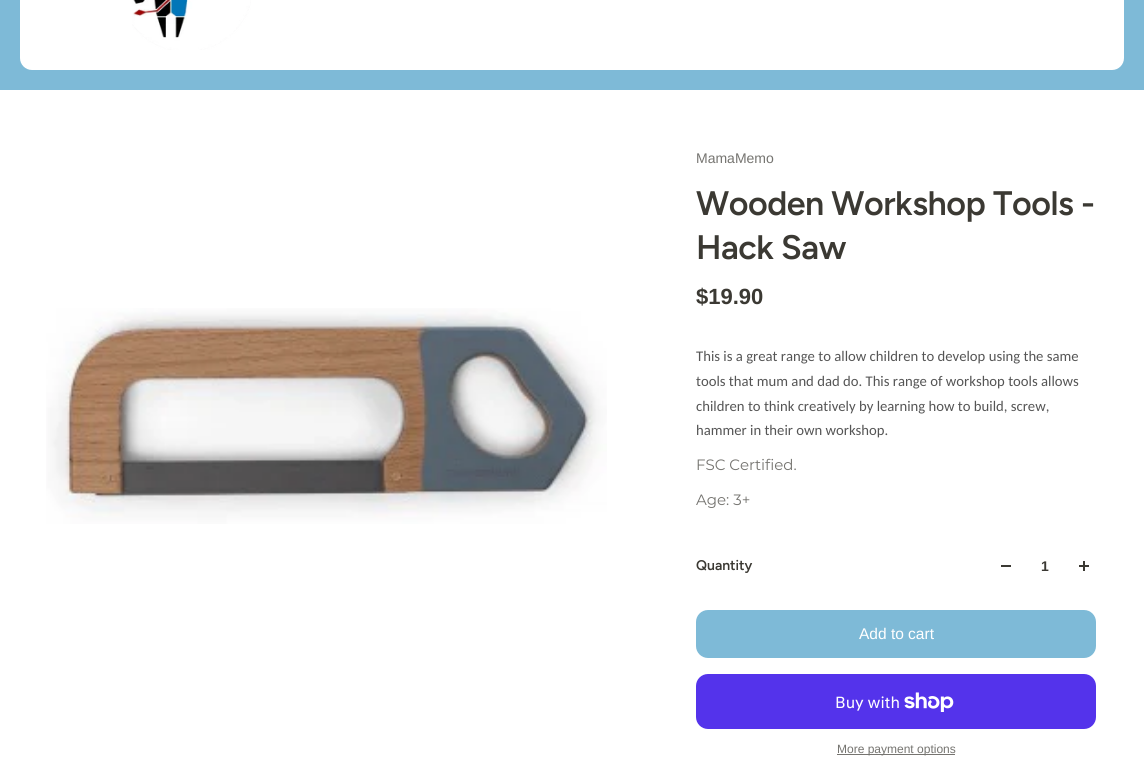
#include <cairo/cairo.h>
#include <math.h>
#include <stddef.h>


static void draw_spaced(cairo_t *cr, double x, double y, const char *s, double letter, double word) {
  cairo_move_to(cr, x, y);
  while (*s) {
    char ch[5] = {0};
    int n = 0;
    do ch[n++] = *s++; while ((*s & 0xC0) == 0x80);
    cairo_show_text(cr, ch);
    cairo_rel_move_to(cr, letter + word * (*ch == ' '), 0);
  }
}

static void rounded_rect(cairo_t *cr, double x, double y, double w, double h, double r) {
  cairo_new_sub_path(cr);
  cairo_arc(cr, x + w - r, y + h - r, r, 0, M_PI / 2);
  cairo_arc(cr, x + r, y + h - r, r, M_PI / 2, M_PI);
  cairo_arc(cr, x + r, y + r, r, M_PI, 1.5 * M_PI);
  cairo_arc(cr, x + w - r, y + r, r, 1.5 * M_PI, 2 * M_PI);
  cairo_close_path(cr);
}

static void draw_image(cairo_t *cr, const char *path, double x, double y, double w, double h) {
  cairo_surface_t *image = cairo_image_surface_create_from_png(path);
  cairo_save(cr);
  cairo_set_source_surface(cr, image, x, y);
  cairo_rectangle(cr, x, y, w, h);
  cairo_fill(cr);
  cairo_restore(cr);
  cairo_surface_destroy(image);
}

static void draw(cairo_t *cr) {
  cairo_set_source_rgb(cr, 126 / 255.0, 186 / 255.0, 215 / 255.0);
  cairo_paint(cr);
  cairo_set_source_rgb(cr, 1, 1, 1);
  rounded_rect(cr, 20, -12, 1104, 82, 12);
  cairo_fill(cr);
  draw_image(cr, "images/1.png", 132, 0, 119, 50);
  cairo_rectangle(cr, 0, 90, 1144, 686);
  cairo_fill(cr);
  draw_image(cr, "images/2.png", 46, 308, 561, 216);
  cairo_set_source_rgb(cr, 59 / 255.0, 57 / 255.0, 51 / 255.0);
  cairo_rectangle(cr, 1001, 565, 10, 2);
  cairo_fill(cr);
  cairo_rectangle(cr, 1079, 565, 10, 2);
  cairo_fill(cr);
  cairo_rectangle(cr, 1083, 561, 2, 10);
  cairo_fill(cr);
  cairo_set_source_rgb(cr, 126 / 255.0, 186 / 255.0, 215 / 255.0);
  rounded_rect(cr, 696, 610, 400, 48, 12);
  cairo_fill(cr);
  cairo_set_source_rgb(cr, 84 / 255.0, 51 / 255.0, 235 / 255.0);
  rounded_rect(cr, 696, 674, 400, 55, 12);
  cairo_fill(cr);
  draw_image(cr, "images/3.png", 904, 692, 50, 20);
  cairo_set_source_rgb(cr, 118 / 255.0, 116 / 255.0, 112 / 255.0);
  cairo_rectangle(cr, 837, 754, 118, 1);
  cairo_fill(cr);
  cairo_select_font_face(cr, "Arimo", CAIRO_FONT_SLANT_NORMAL, CAIRO_FONT_WEIGHT_NORMAL);
  cairo_set_font_size(cr, 14);
  cairo_set_source_rgb(cr, 117 / 255.0, 116 / 255.0, 112 / 255.0);
  cairo_move_to(cr, 696, 163);
  cairo_show_text(cr, "MamaMemo");
  cairo_select_font_face(cr, "Figtree SemiBold", CAIRO_FONT_SLANT_NORMAL, CAIRO_FONT_WEIGHT_NORMAL);
  cairo_set_font_size(cr, 34);
  cairo_set_source_rgb(cr, 59 / 255.0, 57 / 255.0, 51 / 255.0);
  draw_spaced(cr, 696, 215, "Wooden Workshop Tools -", -0.5, 0);
  draw_spaced(cr, 696, 259, "Hack Saw", -0.5, 0);
  cairo_select_font_face(cr, "Arimo", CAIRO_FONT_SLANT_NORMAL, CAIRO_FONT_WEIGHT_BOLD);
  cairo_set_font_size(cr, 22);
  cairo_move_to(cr, 696, 304);
  cairo_show_text(cr, "$19.90");
  cairo_select_font_face(cr, "Carlito", CAIRO_FONT_SLANT_NORMAL, CAIRO_FONT_WEIGHT_NORMAL);
  cairo_set_font_size(cr, 14.7);
  cairo_set_source_rgb(cr, 85 / 255.0, 85 / 255.0, 85 / 255.0);
  cairo_move_to(cr, 696, 361);
  cairo_show_text(cr, "This is a great range to allow children to develop using the same");
  cairo_move_to(cr, 696, 386);
  cairo_show_text(cr, "tools that mum and dad do. This range of workshop tools allows");
  cairo_move_to(cr, 696, 411);
  cairo_show_text(cr, "children to think creatively by learning how to build, screw,");
  cairo_move_to(cr, 696, 435);
  cairo_show_text(cr, "hammer in their own workshop.");
  cairo_select_font_face(cr, "Montserrat", CAIRO_FONT_SLANT_NORMAL, CAIRO_FONT_WEIGHT_NORMAL);
  cairo_set_font_size(cr, 15);
  cairo_set_source_rgb(cr, 117 / 255.0, 116 / 255.0, 112 / 255.0);
  cairo_move_to(cr, 696, 470);
  cairo_show_text(cr, "FSC Certified.");
  cairo_move_to(cr, 696, 505);
  cairo_show_text(cr, "Age: 3+");
  cairo_select_font_face(cr, "Figtree SemiBold", CAIRO_FONT_SLANT_NORMAL, CAIRO_FONT_WEIGHT_NORMAL);
  cairo_set_font_size(cr, 14);
  cairo_set_source_rgb(cr, 59 / 255.0, 57 / 255.0, 51 / 255.0);
  cairo_move_to(cr, 696, 570);
  cairo_show_text(cr, "Quantity");
  cairo_select_font_face(cr, "Arimo", CAIRO_FONT_SLANT_NORMAL, CAIRO_FONT_WEIGHT_BOLD);
  cairo_move_to(cr, 1041, 571);
  cairo_show_text(cr, "1");
  cairo_select_font_face(cr, "Arimo", CAIRO_FONT_SLANT_NORMAL, CAIRO_FONT_WEIGHT_NORMAL);
  cairo_set_font_size(cr, 15.5);
  cairo_set_source_rgb(cr, 1, 1, 1);
  cairo_move_to(cr, 859, 639);
  cairo_show_text(cr, "Add to cart");
  cairo_select_font_face(cr, "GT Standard", CAIRO_FONT_SLANT_NORMAL, CAIRO_FONT_WEIGHT_NORMAL);
  cairo_set_font_size(cr, 16);
  cairo_move_to(cr, 835, 708);
  cairo_show_text(cr, "Buy with");
  cairo_select_font_face(cr, "Arimo", CAIRO_FONT_SLANT_NORMAL, CAIRO_FONT_WEIGHT_NORMAL);
  cairo_set_font_size(cr, 12);
  cairo_set_source_rgb(cr, 117 / 255.0, 116 / 255.0, 112 / 255.0);
  cairo_move_to(cr, 837, 753);
  cairo_show_text(cr, "More payment options");
}

int main(void) {
  cairo_surface_t *surface = cairo_image_surface_create(CAIRO_FORMAT_RGB24, 1144, 776);
  cairo_t *cr = cairo_create(surface);
  cairo_font_options_t *options = cairo_font_options_create();
  cairo_font_options_set_hint_metrics(options, CAIRO_HINT_METRICS_OFF);
  cairo_font_options_set_hint_style(options, CAIRO_HINT_STYLE_NONE);
  cairo_set_font_options(cr, options);
  cairo_set_miter_limit(cr, 4);
  draw(cr);
  cairo_surface_write_to_png(surface, "out.png");
  cairo_font_options_destroy(options);
  cairo_destroy(cr);
  cairo_surface_destroy(surface);
  return 0;
}
